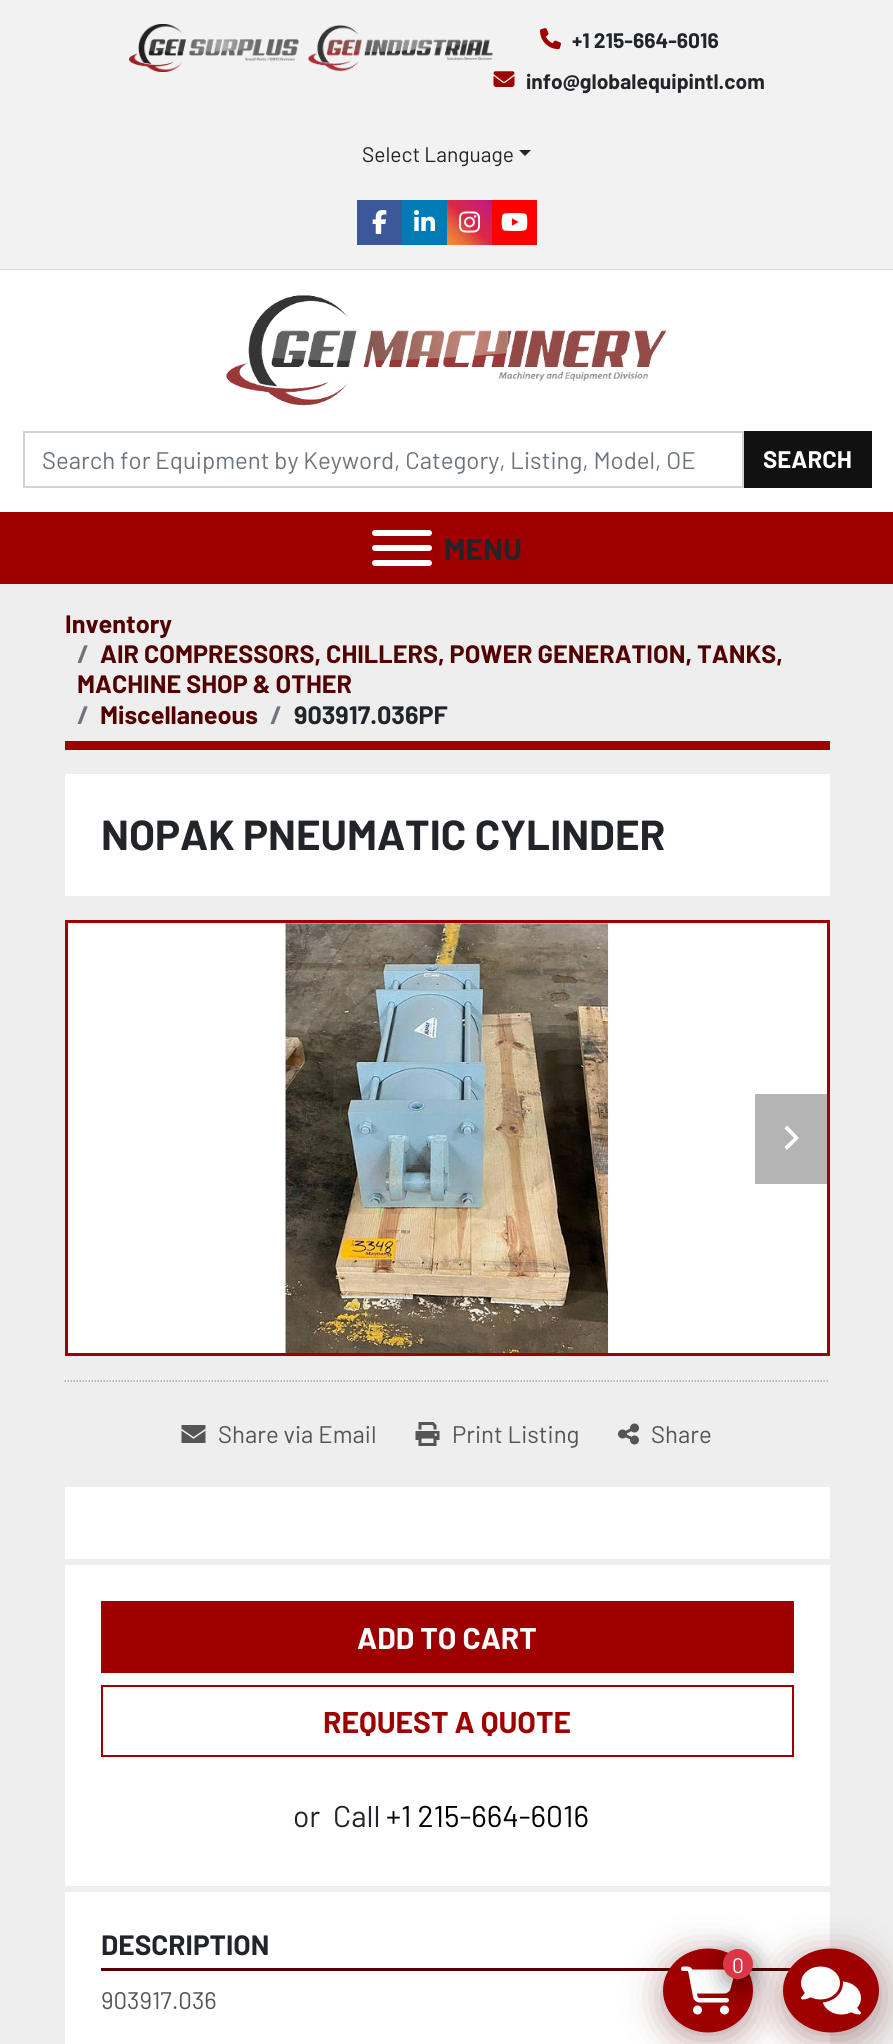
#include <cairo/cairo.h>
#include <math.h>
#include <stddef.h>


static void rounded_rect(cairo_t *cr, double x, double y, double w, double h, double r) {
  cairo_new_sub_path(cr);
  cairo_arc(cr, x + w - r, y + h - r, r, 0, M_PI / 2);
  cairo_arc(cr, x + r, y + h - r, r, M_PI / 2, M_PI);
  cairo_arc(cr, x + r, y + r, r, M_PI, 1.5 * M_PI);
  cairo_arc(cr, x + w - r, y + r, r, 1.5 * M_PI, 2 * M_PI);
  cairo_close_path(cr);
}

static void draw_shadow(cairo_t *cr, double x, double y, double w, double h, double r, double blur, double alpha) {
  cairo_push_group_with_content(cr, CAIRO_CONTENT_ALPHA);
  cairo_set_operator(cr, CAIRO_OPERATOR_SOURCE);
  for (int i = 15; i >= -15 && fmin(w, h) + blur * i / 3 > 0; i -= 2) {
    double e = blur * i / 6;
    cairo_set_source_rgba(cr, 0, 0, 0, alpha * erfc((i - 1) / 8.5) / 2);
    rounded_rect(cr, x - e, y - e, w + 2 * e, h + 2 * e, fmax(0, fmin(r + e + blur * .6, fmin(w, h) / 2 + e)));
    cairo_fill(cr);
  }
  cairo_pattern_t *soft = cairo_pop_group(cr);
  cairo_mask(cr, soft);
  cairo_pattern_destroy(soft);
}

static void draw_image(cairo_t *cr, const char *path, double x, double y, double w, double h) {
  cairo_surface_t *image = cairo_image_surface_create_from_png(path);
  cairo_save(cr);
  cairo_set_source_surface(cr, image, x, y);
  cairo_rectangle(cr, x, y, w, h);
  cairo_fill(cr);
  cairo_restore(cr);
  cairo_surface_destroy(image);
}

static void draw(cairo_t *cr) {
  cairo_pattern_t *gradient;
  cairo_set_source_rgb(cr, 238 / 255.0, 238 / 255.0, 238 / 255.0);
  cairo_paint(cr);
  cairo_set_source_rgb(cr, 242 / 255.0, 242 / 255.0, 242 / 255.0);
  cairo_rectangle(cr, 0, 0, 893, 269);
  cairo_fill(cr);
  cairo_set_source_rgb(cr, 217 / 255.0, 217 / 255.0, 217 / 255.0);
  cairo_rectangle(cr, 0, 269, 893, 1);
  cairo_fill(cr);
  draw_image(cr, "images/1.png", 129, 24, 170, 48);
  draw_image(cr, "images/2.png", 308, 25, 185, 47);
  draw_image(cr, "images/3.png", 540, 28, 21, 22);
  draw_image(cr, "images/4.png", 493, 71, 22, 16);
  cairo_set_source_rgb(cr, 33 / 255.0, 37 / 255.0, 41 / 255.0);
  cairo_new_path(cr);
  cairo_move_to(cr, 519, 150);
  cairo_line_to(cr, 531, 150);
  cairo_line_to(cr, 525, 156);
  cairo_close_path(cr);
  cairo_fill(cr);
  cairo_set_source_rgb(cr, 59 / 255.0, 89 / 255.0, 153 / 255.0);
  cairo_rectangle(cr, 357, 200, 45, 45);
  cairo_fill(cr);
  draw_image(cr, "images/5.png", 372, 210, 15, 24);
  cairo_set_source_rgb(cr, 0, 123 / 255.0, 182 / 255.0);
  cairo_rectangle(cr, 402, 200, 45, 45);
  cairo_fill(cr);
  draw_image(cr, "images/6.png", 414, 210, 21, 21);
  gradient = cairo_pattern_create_linear(447, 245, 492, 200);
  cairo_pattern_add_color_stop_rgba(gradient, 0, 240 / 255.0, 148 / 255.0, 51 / 255.0, 1);
  cairo_pattern_add_color_stop_rgba(gradient, 0.25, 230 / 255.0, 104 / 255.0, 60 / 255.0, 1);
  cairo_pattern_add_color_stop_rgba(gradient, 0.5, 220 / 255.0, 39 / 255.0, 67 / 255.0, 1);
  cairo_pattern_add_color_stop_rgba(gradient, 0.75, 204 / 255.0, 35 / 255.0, 102 / 255.0, 1);
  cairo_pattern_add_color_stop_rgba(gradient, 1, 188 / 255.0, 24 / 255.0, 136 / 255.0, 1);
  cairo_set_source(cr, gradient);
  cairo_pattern_destroy(gradient);
  cairo_rectangle(cr, 447, 200, 45, 45);
  cairo_fill(cr);
  draw_image(cr, "images/7.png", 459, 211, 21, 22);
  cairo_set_source_rgb(cr, 1, 0, 0);
  cairo_rectangle(cr, 492, 200, 45, 45);
  cairo_fill(cr);
  draw_image(cr, "images/8.png", 501, 213, 27, 18);
  cairo_set_source_rgb(cr, 1, 1, 1);
  cairo_rectangle(cr, 0, 270, 893, 242);
  cairo_fill(cr);
  draw_image(cr, "images/9.png", 226, 295, 441, 111);
  cairo_rectangle(cr, 24, 432, 719, 55);
  cairo_set_source_rgb(cr, 206 / 255.0, 212 / 255.0, 218 / 255.0);
  cairo_stroke(cr);
  cairo_set_source_rgb(cr, 17 / 255.0, 17 / 255.0, 17 / 255.0);
  cairo_rectangle(cr, 744, 431, 128, 57);
  cairo_fill(cr);
  cairo_set_source_rgb(cr, 158 / 255.0, 0, 0);
  cairo_rectangle(cr, 0, 512, 893, 72);
  cairo_fill(cr);
  cairo_set_source_rgb(cr, 1, 1, 1);
  rounded_rect(cr, 372, 545, 60, 6, 3);
  cairo_fill(cr);
  rounded_rect(cr, 372, 530, 60, 6, 3);
  cairo_fill(cr);
  rounded_rect(cr, 372, 560, 60, 6, 3);
  cairo_fill(cr);
  cairo_set_source_rgb(cr, 158 / 255.0, 0, 0);
  cairo_rectangle(cr, 65, 741, 765, 9);
  cairo_fill(cr);
  cairo_set_source_rgb(cr, 1, 1, 1);
  cairo_rectangle(cr, 65, 774, 765, 122);
  cairo_fill(cr);
  cairo_rectangle(cr, 66.5, 921.5, 762, 433);
  cairo_fill_preserve(cr);
  cairo_set_source_rgb(cr, 158 / 255.0, 0, 0);
  cairo_set_line_width(cr, 3);
  cairo_stroke(cr);
  draw_image(cr, "images/10.png", 285, 923, 324, 430);
  cairo_set_source_rgb(cr, 180 / 255.0, 180 / 255.0, 180 / 255.0);
  cairo_rectangle(cr, 755, 1094, 72, 90);
  cairo_fill(cr);
  cairo_set_source_rgb(cr, 1, 1, 1);
  cairo_new_path(cr);
  cairo_move_to(cr, 799, 1138);
  cairo_line_to(cr, 787, 1150);
  cairo_line_to(cr, 784.5, 1147);
  cairo_line_to(cr, 794, 1138);
  cairo_line_to(cr, 784.5, 1128.5);
  cairo_line_to(cr, 787, 1125.5);
  cairo_close_path(cr);
  cairo_fill(cr);
  cairo_new_path(cr);
  cairo_move_to(cr, 64.5, 1381);
  cairo_line_to(cr, 829.5, 1381);
  cairo_set_source_rgb(cr, 170 / 255.0, 170 / 255.0, 170 / 255.0);
  cairo_set_line_width(cr, 1.5);
  cairo_set_dash(cr, (double[]){1.5, 1.5}, 2, 0);
  cairo_stroke(cr);
  draw_image(cr, "images/11.png", 181, 1425, 25, 18);
  draw_image(cr, "images/12.png", 415, 1422, 25, 24);
  draw_image(cr, "images/13.png", 618, 1423, 21, 22);
  cairo_set_source_rgb(cr, 1, 1, 1);
  cairo_rectangle(cr, 65, 1487, 765, 557);
  cairo_fill(cr);
  cairo_set_source_rgb(cr, 238 / 255.0, 238 / 255.0, 238 / 255.0);
  cairo_rectangle(cr, 65, 1559, 765, 6);
  cairo_fill(cr);
  cairo_rectangle(cr, 65, 1886, 765, 6);
  cairo_fill(cr);
  cairo_set_source_rgb(cr, 158 / 255.0, 0, 0);
  cairo_rectangle(cr, 101, 1601, 693, 72);
  cairo_fill(cr);
  cairo_rectangle(cr, 102, 1686, 691, 70);
  cairo_set_line_width(cr, 2);
  cairo_set_dash(cr, NULL, 0, 0);
  cairo_stroke(cr);
  cairo_set_source_rgb(cr, 82 / 255.0, 0, 0);
  cairo_rectangle(cr, 101, 1968, 693, 3);
  cairo_fill(cr);
  cairo_set_source_rgb(cr, 82 / 255.0, 0, 0);
  draw_shadow(cr, 663, 1955, 90, 84, 42, 18, 0.4);
  cairo_set_source_rgb(cr, 158 / 255.0, 0, 0);
  cairo_new_path(cr);
  cairo_move_to(cr, 708, 1948.5);
  cairo_curve_to(cr, 733, 1948.5, 753, 1967.5, 753, 1990.5);
  cairo_curve_to(cr, 753, 2013.5, 733, 2032.5, 708, 2032.5);
  cairo_curve_to(cr, 683, 2032.5, 663, 2013.5, 663, 1990.5);
  cairo_curve_to(cr, 663, 1967.5, 683, 1948.5, 708, 1948.5);
  cairo_close_path(cr);
  cairo_fill(cr);
  draw_image(cr, "images/15.png", 681, 1966, 53, 49);
  cairo_set_source_rgb(cr, 82 / 255.0, 0, 0);
  draw_shadow(cr, 783, 1955, 96, 84, 42, 18, 0.4);
  cairo_set_source_rgb(cr, 158 / 255.0, 0, 0);
  cairo_new_path(cr);
  cairo_move_to(cr, 831, 1948.5);
  cairo_curve_to(cr, 857.5, 1948.5, 879, 1967.5, 879, 1990.5);
  cairo_curve_to(cr, 879, 2013.5, 857.5, 2032.5, 831, 2032.5);
  cairo_curve_to(cr, 804.5, 2032.5, 783, 2013.5, 783, 1990.5);
  cairo_curve_to(cr, 783, 1967.5, 804.5, 1948.5, 831, 1948.5);
  cairo_close_path(cr);
  cairo_fill(cr);
  draw_image(cr, "images/14.png", 801, 1966, 60, 49);
  cairo_set_source_rgb(cr, 0, 0, 0);
  draw_shadow(cr, 723, 1955, 30, 30, 15, 12, 0.4);
  cairo_set_source_rgb(cr, 220 / 255.0, 53 / 255.0, 69 / 255.0);
  cairo_arc(cr, 738, 1964, 15, 0, 2 * M_PI);
  cairo_fill(cr);
  cairo_select_font_face(cr, "Barlow", CAIRO_FONT_SLANT_NORMAL, CAIRO_FONT_WEIGHT_BOLD);
  cairo_set_font_size(cr, 21);
  cairo_set_source_rgb(cr, 33 / 255.0, 37 / 255.0, 41 / 255.0);
  cairo_move_to(cr, 572, 48);
  cairo_show_text(cr, "+1 215-664-6016");
  cairo_move_to(cr, 526, 89);
  cairo_show_text(cr, "info@globalequipintl.com");
  cairo_select_font_face(cr, "Barlow", CAIRO_FONT_SLANT_NORMAL, CAIRO_FONT_WEIGHT_NORMAL);
  cairo_move_to(cr, 362, 162);
  cairo_show_text(cr, "Select Language");
  cairo_set_font_size(cr, 24);
  cairo_set_source_rgb(cr, 108 / 255.0, 117 / 255.0, 125 / 255.0);
  cairo_move_to(cr, 42, 469);
  cairo_show_text(cr, "Search for Equipment by Keyword, Category, Listing, Model, OE");
  cairo_select_font_face(cr, "Barlow", CAIRO_FONT_SLANT_NORMAL, CAIRO_FONT_WEIGHT_BOLD);
  cairo_set_source_rgb(cr, 1, 1, 1);
  cairo_move_to(cr, 763, 468);
  cairo_show_text(cr, "SEARCH");
  cairo_set_font_size(cr, 30);
  cairo_set_source_rgb(cr, 33 / 255.0, 37 / 255.0, 41 / 255.0);
  cairo_move_to(cr, 444, 560);
  cairo_show_text(cr, "MENU");
  cairo_set_font_size(cr, 25.2);
  cairo_set_source_rgb(cr, 82 / 255.0, 0, 0);
  cairo_move_to(cr, 65, 633);
  cairo_show_text(cr, "Inventory");
  cairo_set_source_rgb(cr, 108 / 255.0, 117 / 255.0, 125 / 255.0);
  cairo_move_to(cr, 77, 663);
  cairo_show_text(cr, "/");
  cairo_set_source_rgb(cr, 82 / 255.0, 0, 0);
  cairo_move_to(cr, 100, 663);
  cairo_show_text(cr, "AIR COMPRESSORS, CHILLERS, POWER GENERATION, TANKS,");
  cairo_move_to(cr, 77, 693);
  cairo_show_text(cr, "MACHINE SHOP & OTHER");
  cairo_set_source_rgb(cr, 108 / 255.0, 117 / 255.0, 125 / 255.0);
  cairo_move_to(cr, 77, 724);
  cairo_show_text(cr, "/");
  cairo_set_source_rgb(cr, 82 / 255.0, 0, 0);
  cairo_move_to(cr, 100, 724);
  cairo_show_text(cr, "Miscellaneous");
  cairo_set_source_rgb(cr, 108 / 255.0, 117 / 255.0, 125 / 255.0);
  cairo_move_to(cr, 270, 724);
  cairo_show_text(cr, "/");
  cairo_set_source_rgb(cr, 33 / 255.0, 37 / 255.0, 41 / 255.0);
  cairo_move_to(cr, 294, 724);
  cairo_show_text(cr, "903917.036PF");
  cairo_set_font_size(cr, 42);
  cairo_move_to(cr, 101, 850);
  cairo_show_text(cr, "NOPAK PNEUMATIC CYLINDER");
  cairo_select_font_face(cr, "Barlow", CAIRO_FONT_SLANT_NORMAL, CAIRO_FONT_WEIGHT_NORMAL);
  cairo_set_font_size(cr, 24);
  cairo_set_source_rgb(cr, 85 / 255.0, 85 / 255.0, 85 / 255.0);
  cairo_move_to(cr, 218, 1443);
  cairo_show_text(cr, "Share via Email");
  cairo_move_to(cr, 452, 1443);
  cairo_show_text(cr, "Print Listing");
  cairo_move_to(cr, 651, 1443);
  cairo_show_text(cr, "Share");
  cairo_select_font_face(cr, "Barlow", CAIRO_FONT_SLANT_NORMAL, CAIRO_FONT_WEIGHT_BOLD);
  cairo_set_font_size(cr, 30);
  cairo_set_source_rgb(cr, 1, 1, 1);
  cairo_move_to(cr, 357, 1649);
  cairo_show_text(cr, "ADD TO CART");
  cairo_set_source_rgb(cr, 158 / 255.0, 0, 0);
  cairo_move_to(cr, 323, 1733);
  cairo_show_text(cr, "REQUEST A QUOTE");
  cairo_select_font_face(cr, "Barlow", CAIRO_FONT_SLANT_NORMAL, CAIRO_FONT_WEIGHT_NORMAL);
  cairo_set_source_rgb(cr, 33 / 255.0, 37 / 255.0, 41 / 255.0);
  cairo_move_to(cr, 293, 1827);
  cairo_show_text(cr, "or");
  cairo_move_to(cr, 333, 1827);
  cairo_show_text(cr, "Call");
  cairo_set_source_rgb(cr, 0, 0, 0);
  cairo_move_to(cr, 386, 1827);
  cairo_show_text(cr, "+1 215-664-6016");
  cairo_select_font_face(cr, "Barlow", CAIRO_FONT_SLANT_NORMAL, CAIRO_FONT_WEIGHT_BOLD);
  cairo_set_font_size(cr, 28);
  cairo_set_source_rgb(cr, 33 / 255.0, 37 / 255.0, 41 / 255.0);
  cairo_move_to(cr, 101, 1955);
  cairo_show_text(cr, "DESCRIPTION");
  cairo_select_font_face(cr, "Barlow", CAIRO_FONT_SLANT_NORMAL, CAIRO_FONT_WEIGHT_NORMAL);
  cairo_set_font_size(cr, 24);
  cairo_set_source_rgb(cr, 85 / 255.0, 85 / 255.0, 85 / 255.0);
  cairo_move_to(cr, 101, 2009);
  cairo_show_text(cr, "903917.036");
  cairo_set_font_size(cr, 21);
  cairo_set_source_rgb(cr, 1, 1, 1);
  cairo_move_to(cr, 732, 1973);
  cairo_show_text(cr, "0");
}

int main(void) {
  cairo_surface_t *surface = cairo_image_surface_create(CAIRO_FORMAT_RGB24, 893, 2044);
  cairo_t *cr = cairo_create(surface);
  cairo_font_options_t *options = cairo_font_options_create();
  cairo_font_options_set_hint_metrics(options, CAIRO_HINT_METRICS_OFF);
  cairo_font_options_set_hint_style(options, CAIRO_HINT_STYLE_NONE);
  cairo_set_font_options(cr, options);
  cairo_set_miter_limit(cr, 4);
  draw(cr);
  cairo_surface_write_to_png(surface, "out.png");
  cairo_font_options_destroy(options);
  cairo_destroy(cr);
  cairo_surface_destroy(surface);
  return 0;
}
